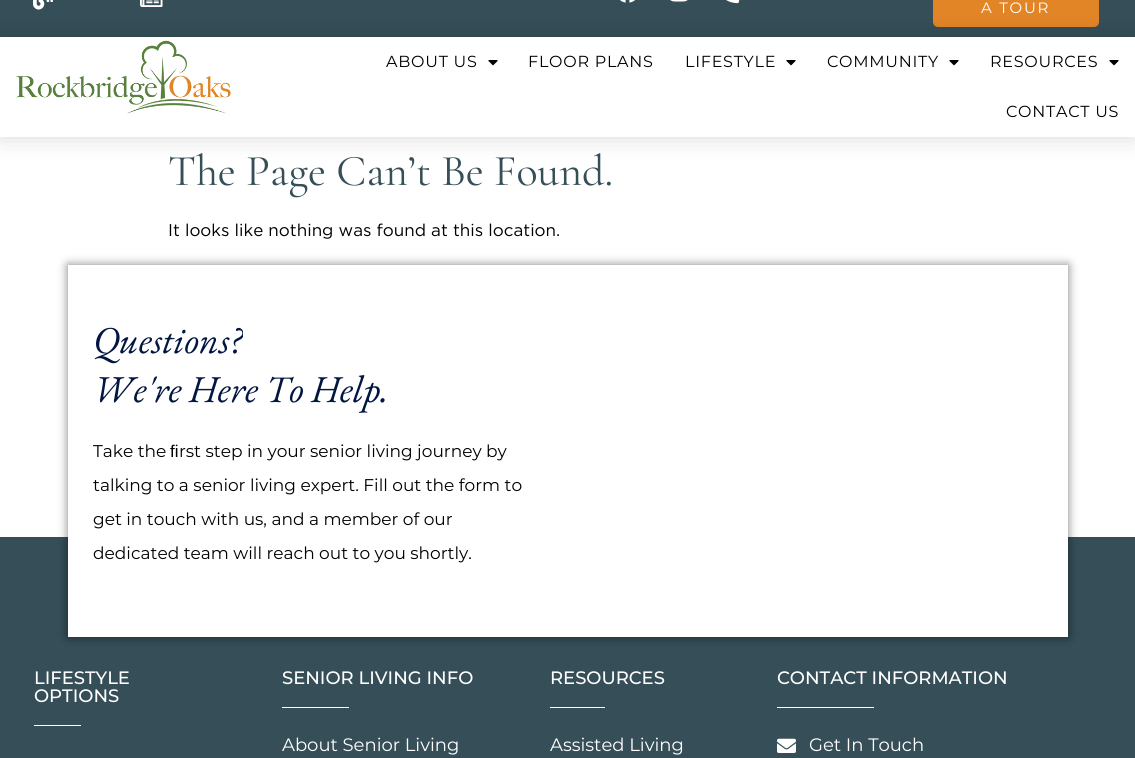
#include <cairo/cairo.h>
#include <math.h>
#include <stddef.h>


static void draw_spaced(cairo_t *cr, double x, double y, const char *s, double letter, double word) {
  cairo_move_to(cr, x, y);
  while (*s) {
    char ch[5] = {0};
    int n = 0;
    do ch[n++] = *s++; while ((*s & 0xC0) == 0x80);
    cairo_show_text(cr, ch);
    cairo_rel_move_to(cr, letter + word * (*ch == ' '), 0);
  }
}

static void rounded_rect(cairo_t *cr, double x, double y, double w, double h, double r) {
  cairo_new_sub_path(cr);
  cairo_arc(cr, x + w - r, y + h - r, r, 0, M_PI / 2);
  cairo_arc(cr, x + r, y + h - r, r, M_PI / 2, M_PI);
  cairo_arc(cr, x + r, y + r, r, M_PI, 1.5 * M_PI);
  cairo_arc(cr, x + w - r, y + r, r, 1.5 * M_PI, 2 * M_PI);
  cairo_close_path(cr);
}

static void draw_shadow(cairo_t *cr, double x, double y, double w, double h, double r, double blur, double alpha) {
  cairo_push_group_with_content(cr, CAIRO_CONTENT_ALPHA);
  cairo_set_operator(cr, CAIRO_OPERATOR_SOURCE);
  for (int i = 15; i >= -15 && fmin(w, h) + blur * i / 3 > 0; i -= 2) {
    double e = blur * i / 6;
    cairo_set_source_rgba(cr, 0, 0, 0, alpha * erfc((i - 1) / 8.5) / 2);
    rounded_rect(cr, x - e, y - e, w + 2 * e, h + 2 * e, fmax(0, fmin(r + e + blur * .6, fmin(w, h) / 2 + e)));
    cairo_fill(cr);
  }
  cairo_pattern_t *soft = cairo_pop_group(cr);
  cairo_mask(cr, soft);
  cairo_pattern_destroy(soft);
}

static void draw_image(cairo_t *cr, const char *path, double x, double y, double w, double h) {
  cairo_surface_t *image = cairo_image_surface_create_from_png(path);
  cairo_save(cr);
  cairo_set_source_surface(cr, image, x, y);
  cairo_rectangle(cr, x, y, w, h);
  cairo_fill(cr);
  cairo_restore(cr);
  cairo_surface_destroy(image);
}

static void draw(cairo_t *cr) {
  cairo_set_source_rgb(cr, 1, 1, 1);
  cairo_paint(cr);
  cairo_set_source_rgb(cr, 53 / 255.0, 78 / 255.0, 87 / 255.0);
  cairo_rectangle(cr, 0, 0, 1135, 37);
  cairo_fill(cr);
  draw_image(cr, "images/1.png", 33, 0, 20, 10);
  draw_image(cr, "images/2.png", 140, 0, 23, 7);
  draw_image(cr, "images/3.png", 620, 0, 15, 3);
  draw_image(cr, "images/4.png", 670, 0, 18, 2);
  draw_image(cr, "images/5.png", 726, 0, 14, 4);
  cairo_set_source_rgb(cr, 225 / 255.0, 133 / 255.0, 39 / 255.0);
  rounded_rect(cr, 933, -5, 166, 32, 5);
  cairo_fill(cr);
  cairo_set_source_rgb(cr, 0, 0, 0);
  draw_shadow(cr, 0, 37, 1135, 100, 0, 12, 0.15);
  cairo_set_source_rgb(cr, 1, 1, 1);
  cairo_rectangle(cr, 0, 37, 1135, 100);
  cairo_fill(cr);
  draw_image(cr, "images/6.png", 16, 40, 215, 74);
  draw_image(cr, "images/7.png", 488, 60, 10, 6);
  draw_image(cr, "images/7.png", 786, 60, 10, 6);
  draw_image(cr, "images/7.png", 949, 60, 10, 6);
  draw_image(cr, "images/7.png", 1109, 60, 10, 6);
  cairo_set_source_rgb(cr, 53 / 255.0, 78 / 255.0, 87 / 255.0);
  cairo_rectangle(cr, 0, 537, 1135, 221);
  cairo_fill(cr);
  cairo_set_source_rgb(cr, 0, 0, 0);
  draw_shadow(cr, 68, 265, 1000, 372, 0, 5, 0.5);
  cairo_set_source_rgb(cr, 1, 1, 1);
  cairo_rectangle(cr, 68, 265, 1000, 372);
  cairo_fill(cr);
  cairo_rectangle(cr, 34, 725, 47, 1);
  cairo_fill(cr);
  cairo_rectangle(cr, 282, 707, 67, 1);
  cairo_fill(cr);
  cairo_rectangle(cr, 550, 707, 55, 1);
  cairo_fill(cr);
  cairo_rectangle(cr, 777, 707, 97, 1);
  cairo_fill(cr);
  draw_image(cr, "images/8.png", 777, 738, 19, 15);
  cairo_select_font_face(cr, "Montserrat", CAIRO_FONT_SLANT_NORMAL, CAIRO_FONT_WEIGHT_NORMAL);
  cairo_set_font_size(cr, 15);
  draw_spaced(cr, 981, 13, "A TOUR", 1.75, 0);
  cairo_set_font_size(cr, 16);
  cairo_set_source_rgb(cr, 0, 0, 0);
  draw_spaced(cr, 386, 67, "ABOUT US", 0.75, 0);
  draw_spaced(cr, 528, 67, "FLOOR PLANS", 0.75, 0);
  draw_spaced(cr, 685, 67, "LIFESTYLE", 0.75, 0);
  draw_spaced(cr, 827, 67, "COMMUNITY", 0.75, 0);
  draw_spaced(cr, 990, 67, "RESOURCES", 0.75, 0);
  draw_spaced(cr, 1006, 117, "CONTACT US", 0.75, 0);
  cairo_select_font_face(cr, "Cormorant Garamond", CAIRO_FONT_SLANT_NORMAL, CAIRO_FONT_WEIGHT_NORMAL);
  cairo_set_font_size(cr, 44);
  cairo_set_source_rgb(cr, 53 / 255.0, 78 / 255.0, 87 / 255.0);
  cairo_move_to(cr, 168, 185);
  cairo_show_text(cr, "The Page Can’t Be Found.");
  cairo_select_font_face(cr, "Gotham", CAIRO_FONT_SLANT_NORMAL, CAIRO_FONT_WEIGHT_NORMAL);
  cairo_set_font_size(cr, 17);
  cairo_set_source_rgb(cr, 0, 0, 0);
  cairo_move_to(cr, 168, 236);
  cairo_show_text(cr, "It looks like nothing was found at this location.");
  cairo_select_font_face(cr, "EB Garamond", CAIRO_FONT_SLANT_ITALIC, CAIRO_FONT_WEIGHT_NORMAL);
  cairo_set_font_size(cr, 38);
  cairo_set_source_rgb(cr, 1 / 255.0, 22 / 255.0, 64 / 255.0);
  cairo_move_to(cr, 93, 353);
  cairo_show_text(cr, "Questions?");
  cairo_move_to(cr, 93, 402);
  cairo_show_text(cr, "We're Here To Help.");
  cairo_select_font_face(cr, "Montserrat", CAIRO_FONT_SLANT_NORMAL, CAIRO_FONT_WEIGHT_NORMAL);
  cairo_set_font_size(cr, 17);
  cairo_set_source_rgb(cr, 0, 0, 0);
  cairo_move_to(cr, 93, 457);
  cairo_show_text(cr, "Take the");
  cairo_select_font_face(cr, "Liberation Sans", CAIRO_FONT_SLANT_NORMAL, CAIRO_FONT_WEIGHT_NORMAL);
  cairo_move_to(cr, 170, 457);
  cairo_show_text(cr, "ﬁ");
  cairo_select_font_face(cr, "Montserrat", CAIRO_FONT_SLANT_NORMAL, CAIRO_FONT_WEIGHT_NORMAL);
  cairo_move_to(cr, 179, 457);
  cairo_show_text(cr, "rst step in your senior living journey by");
  cairo_move_to(cr, 93, 491);
  cairo_show_text(cr, "talking to a senior living expert. Fill out the form to");
  cairo_move_to(cr, 93, 525);
  cairo_show_text(cr, "get in touch with us, and a member of our");
  cairo_move_to(cr, 93, 559);
  cairo_show_text(cr, "dedicated team will reach out to you shortly.");
  cairo_select_font_face(cr, "Montserrat Medium", CAIRO_FONT_SLANT_NORMAL, CAIRO_FONT_WEIGHT_NORMAL);
  cairo_set_font_size(cr, 18);
  cairo_set_source_rgb(cr, 1, 1, 1);
  cairo_move_to(cr, 34, 684);
  cairo_show_text(cr, "LIFESTYLE");
  cairo_move_to(cr, 34, 702);
  cairo_show_text(cr, "OPTIONS");
  cairo_move_to(cr, 282, 684);
  cairo_show_text(cr, "SENIOR LIVING INFO");
  cairo_select_font_face(cr, "Montserrat", CAIRO_FONT_SLANT_NORMAL, CAIRO_FONT_WEIGHT_NORMAL);
  cairo_move_to(cr, 282, 751);
  cairo_show_text(cr, "About Senior Living");
  cairo_select_font_face(cr, "Montserrat Medium", CAIRO_FONT_SLANT_NORMAL, CAIRO_FONT_WEIGHT_NORMAL);
  cairo_move_to(cr, 550, 684);
  cairo_show_text(cr, "RESOURCES");
  cairo_select_font_face(cr, "Montserrat", CAIRO_FONT_SLANT_NORMAL, CAIRO_FONT_WEIGHT_NORMAL);
  cairo_move_to(cr, 550, 751);
  cairo_show_text(cr, "Assisted Living");
  cairo_select_font_face(cr, "Montserrat Medium", CAIRO_FONT_SLANT_NORMAL, CAIRO_FONT_WEIGHT_NORMAL);
  cairo_move_to(cr, 777, 684);
  cairo_show_text(cr, "CONTACT INFORMATION");
  cairo_select_font_face(cr, "Montserrat", CAIRO_FONT_SLANT_NORMAL, CAIRO_FONT_WEIGHT_NORMAL);
  cairo_move_to(cr, 809, 751);
  cairo_show_text(cr, "Get In Touch");
}

int main(void) {
  cairo_surface_t *surface = cairo_image_surface_create(CAIRO_FORMAT_RGB24, 1135, 758);
  cairo_t *cr = cairo_create(surface);
  cairo_font_options_t *options = cairo_font_options_create();
  cairo_font_options_set_hint_metrics(options, CAIRO_HINT_METRICS_OFF);
  cairo_font_options_set_hint_style(options, CAIRO_HINT_STYLE_NONE);
  cairo_set_font_options(cr, options);
  cairo_set_miter_limit(cr, 4);
  draw(cr);
  cairo_surface_write_to_png(surface, "out.png");
  cairo_font_options_destroy(options);
  cairo_destroy(cr);
  cairo_surface_destroy(surface);
  return 0;
}
